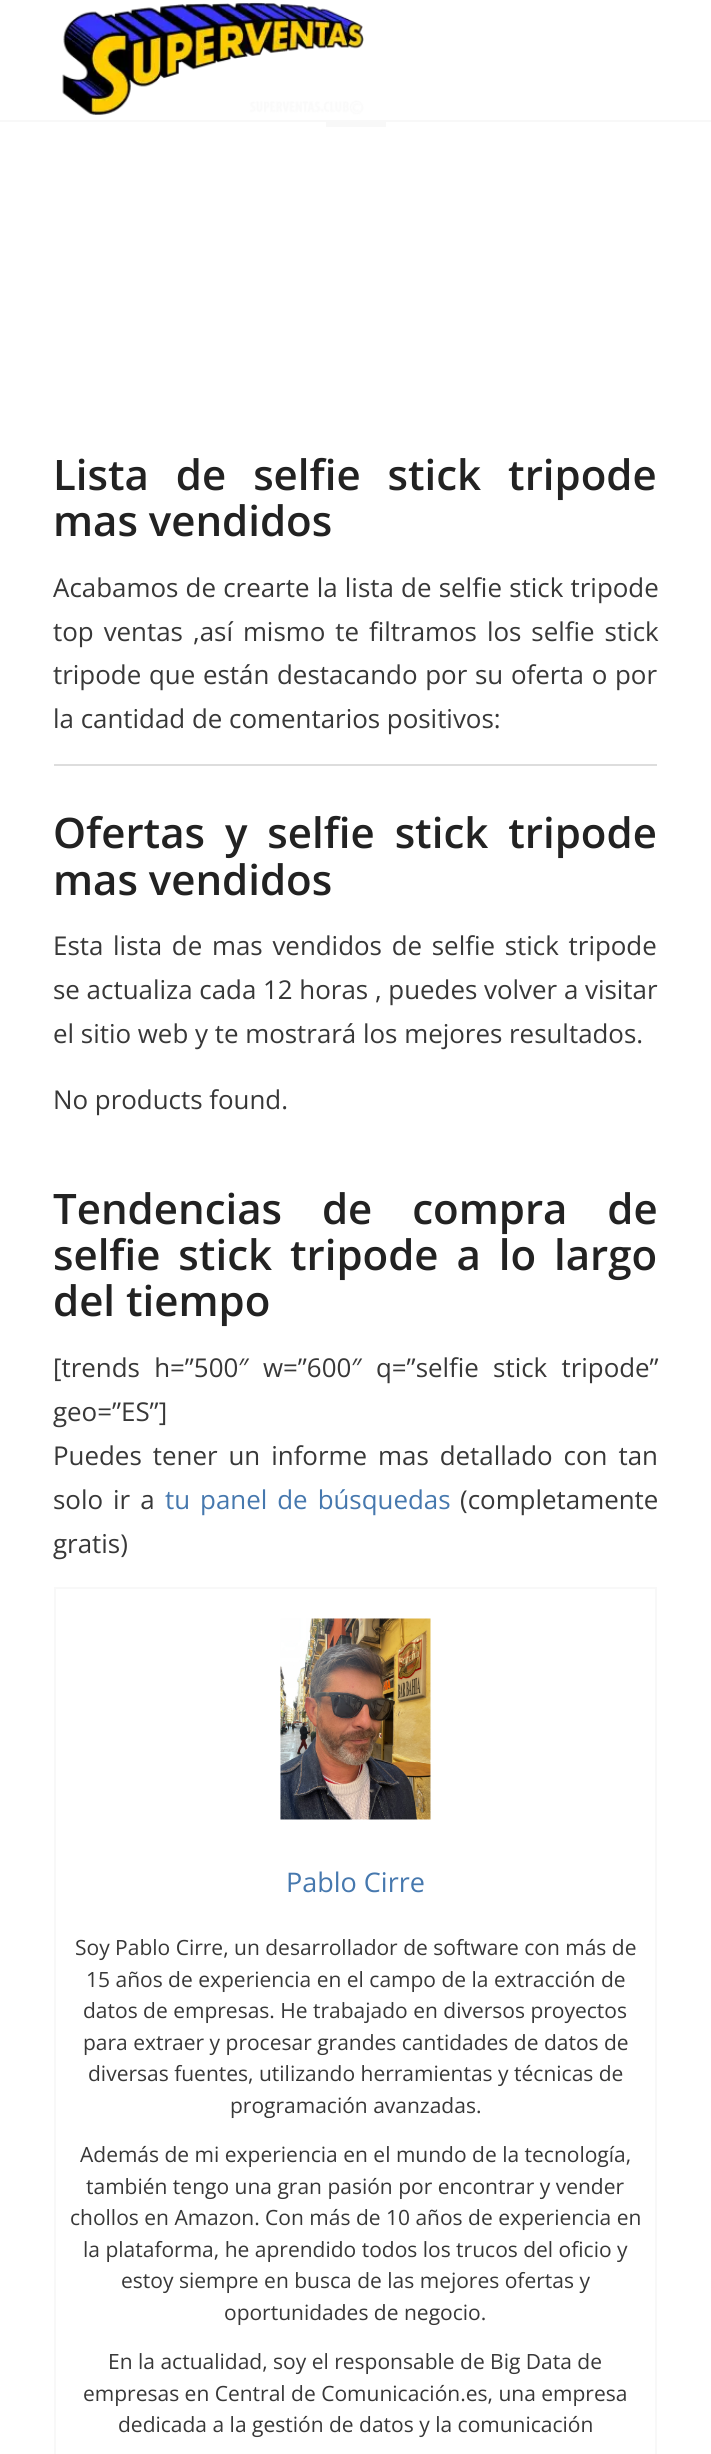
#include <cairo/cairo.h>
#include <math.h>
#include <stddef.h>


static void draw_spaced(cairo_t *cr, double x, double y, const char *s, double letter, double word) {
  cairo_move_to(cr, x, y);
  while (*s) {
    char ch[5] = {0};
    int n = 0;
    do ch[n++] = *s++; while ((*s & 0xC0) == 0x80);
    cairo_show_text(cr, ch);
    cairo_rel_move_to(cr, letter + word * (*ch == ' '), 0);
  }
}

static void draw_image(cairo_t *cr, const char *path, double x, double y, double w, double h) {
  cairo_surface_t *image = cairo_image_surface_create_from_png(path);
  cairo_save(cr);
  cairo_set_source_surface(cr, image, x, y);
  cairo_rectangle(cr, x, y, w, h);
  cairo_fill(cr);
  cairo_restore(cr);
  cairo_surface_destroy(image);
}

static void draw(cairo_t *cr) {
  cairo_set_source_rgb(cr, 1, 1, 1);
  cairo_paint(cr);
  cairo_set_source_rgb(cr, 248 / 255.0, 248 / 255.0, 248 / 255.0);
  cairo_rectangle(cr, 0, 120, 711, 2);
  cairo_fill(cr);
  draw_image(cr, "images/1.png", 62, 2, 302, 113);
  cairo_rectangle(cr, 326, 122, 60, 5);
  cairo_fill(cr);
  cairo_set_source_rgb(cr, 221 / 255.0, 221 / 255.0, 221 / 255.0);
  cairo_rectangle(cr, 54, 764, 603, 2);
  cairo_fill(cr);
  cairo_rectangle(cr, 55, 1588, 601, 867);
  cairo_set_source_rgb(cr, 248 / 255.0, 248 / 255.0, 248 / 255.0);
  cairo_stroke(cr);
  draw_image(cr, "images/2.png", 280, 1618, 151, 202);
  cairo_select_font_face(cr, "Open Sans SemiBold", CAIRO_FONT_SLANT_NORMAL, CAIRO_FONT_WEIGHT_NORMAL);
  cairo_set_font_size(cr, 42);
  cairo_set_source_rgb(cr, 34 / 255.0, 34 / 255.0, 34 / 255.0);
  draw_spaced(cr, 53, 490, "Lista de selfie stick tripode", 0, 16);
  cairo_move_to(cr, 53, 536);
  cairo_show_text(cr, "mas vendidos");
  cairo_select_font_face(cr, "Open Sans", CAIRO_FONT_SLANT_NORMAL, CAIRO_FONT_WEIGHT_NORMAL);
  cairo_set_font_size(cr, 25.9);
  cairo_set_source_rgb(cr, 56 / 255.0, 56 / 255.0, 56 / 255.0);
  draw_spaced(cr, 53, 597, "Acabamos de crearte la lista de selfie stick tripode", 0, 0.5);
  draw_spaced(cr, 53, 641, "top ventas ,así mismo te filtramos los selfie stick", 0, 3.25);
  draw_spaced(cr, 53, 684, "tripode que están destacando por su oferta o por", 0, 1);
  cairo_move_to(cr, 53, 728);
  cairo_show_text(cr, "la cantidad de comentarios positivos:");
  cairo_select_font_face(cr, "Open Sans SemiBold", CAIRO_FONT_SLANT_NORMAL, CAIRO_FONT_WEIGHT_NORMAL);
  cairo_set_font_size(cr, 42);
  cairo_set_source_rgb(cr, 34 / 255.0, 34 / 255.0, 34 / 255.0);
  draw_spaced(cr, 53, 848, "Ofertas y selfie stick tripode", 0, 9);
  cairo_move_to(cr, 53, 895);
  cairo_show_text(cr, "mas vendidos");
  cairo_select_font_face(cr, "Open Sans", CAIRO_FONT_SLANT_NORMAL, CAIRO_FONT_WEIGHT_NORMAL);
  cairo_set_font_size(cr, 25.9);
  cairo_set_source_rgb(cr, 56 / 255.0, 56 / 255.0, 56 / 255.0);
  draw_spaced(cr, 53, 955, "Esta lista de mas vendidos de selfie stick tripode", 0, 3);
  cairo_move_to(cr, 53, 999);
  cairo_show_text(cr, "se actualiza cada 12 horas , puedes volver a visitar");
  cairo_move_to(cr, 53, 1043);
  cairo_show_text(cr, "el sitio web y te mostrará los mejores resultados.");
  cairo_move_to(cr, 53, 1109);
  cairo_show_text(cr, "No products found.");
  cairo_select_font_face(cr, "Open Sans SemiBold", CAIRO_FONT_SLANT_NORMAL, CAIRO_FONT_WEIGHT_NORMAL);
  cairo_set_font_size(cr, 42);
  cairo_set_source_rgb(cr, 34 / 255.0, 34 / 255.0, 34 / 255.0);
  draw_spaced(cr, 53, 1224, "Tendencias de compra de", 0, 29);
  draw_spaced(cr, 53, 1270, "selfie stick tripode a lo largo", 0, 7);
  cairo_move_to(cr, 53, 1316);
  cairo_show_text(cr, "del tiempo");
  cairo_select_font_face(cr, "Open Sans", CAIRO_FONT_SLANT_NORMAL, CAIRO_FONT_WEIGHT_NORMAL);
  cairo_set_font_size(cr, 25.9);
  cairo_set_source_rgb(cr, 56 / 255.0, 56 / 255.0, 56 / 255.0);
  draw_spaced(cr, 53, 1377, "[trends h=”500″ w=”600″ q=”selfie stick tripode”", 0, 7.5);
  cairo_move_to(cr, 53, 1421);
  cairo_show_text(cr, "geo=”ES”]");
  draw_spaced(cr, 53, 1465, "Puedes tener un informe mas detallado con tan", 0, 4.25);
  draw_spaced(cr, 53, 1509, "solo ir a", 0, 3.25);
  cairo_set_source_rgb(cr, 70 / 255.0, 120 / 255.0, 174 / 255.0);
  draw_spaced(cr, 165, 1509, "tu panel de búsquedas", 0, 3.25);
  cairo_set_source_rgb(cr, 56 / 255.0, 56 / 255.0, 56 / 255.0);
  cairo_move_to(cr, 460, 1509);
  cairo_show_text(cr, "(completamente");
  cairo_move_to(cr, 53, 1553);
  cairo_show_text(cr, "gratis)");
  cairo_set_font_size(cr, 27);
  cairo_set_source_rgb(cr, 70 / 255.0, 120 / 255.0, 174 / 255.0);
  cairo_move_to(cr, 286, 1892);
  cairo_show_text(cr, "Pablo Cirre");
  cairo_set_font_size(cr, 21);
  cairo_set_source_rgb(cr, 56 / 255.0, 56 / 255.0, 56 / 255.0);
  cairo_move_to(cr, 75, 1955);
  cairo_show_text(cr, "Soy Pablo Cirre, un desarrollador de software con más de");
  cairo_move_to(cr, 86, 1987);
  cairo_show_text(cr, "15 años de experiencia en el campo de la extracción de");
  cairo_move_to(cr, 83, 2018);
  cairo_show_text(cr, "datos de empresas. He trabajado en diversos proyectos");
  cairo_move_to(cr, 83, 2050);
  cairo_show_text(cr, "para extraer y procesar grandes cantidades de datos de");
  cairo_move_to(cr, 88, 2081);
  cairo_show_text(cr, "diversas fuentes, utilizando herramientas y técnicas de");
  cairo_move_to(cr, 230, 2113);
  cairo_show_text(cr, "programación avanzadas.");
  cairo_move_to(cr, 80, 2162);
  cairo_show_text(cr, "Además de mi experiencia en el mundo de la tecnología,");
  cairo_move_to(cr, 86, 2194);
  cairo_show_text(cr, "también tengo una gran pasión por encontrar y vender");
  cairo_move_to(cr, 70, 2225);
  cairo_show_text(cr, "chollos en Amazon. Con más de 10 años de experiencia en");
  cairo_move_to(cr, 83, 2257);
  cairo_show_text(cr, "la plataforma, he aprendido todos los trucos del oficio y");
  cairo_move_to(cr, 121, 2288);
  cairo_show_text(cr, "estoy siempre en busca de las mejores ofertas y");
  cairo_move_to(cr, 224, 2320);
  cairo_show_text(cr, "oportunidades de negocio.");
  cairo_move_to(cr, 108, 2369);
  cairo_show_text(cr, "En la actualidad, soy el responsable de Big Data de");
  cairo_move_to(cr, 83, 2401);
  cairo_show_text(cr, "empresas en Central de Comunicación.es, una empresa");
  cairo_move_to(cr, 118, 2432);
  cairo_show_text(cr, "dedicada a la gestión de datos y la comunicación");
}

int main(void) {
  cairo_surface_t *surface = cairo_image_surface_create(CAIRO_FORMAT_RGB24, 711, 2454);
  cairo_t *cr = cairo_create(surface);
  cairo_font_options_t *options = cairo_font_options_create();
  cairo_font_options_set_hint_metrics(options, CAIRO_HINT_METRICS_OFF);
  cairo_font_options_set_hint_style(options, CAIRO_HINT_STYLE_NONE);
  cairo_set_font_options(cr, options);
  cairo_set_miter_limit(cr, 4);
  draw(cr);
  cairo_surface_write_to_png(surface, "out.png");
  cairo_font_options_destroy(options);
  cairo_destroy(cr);
  cairo_surface_destroy(surface);
  return 0;
}
